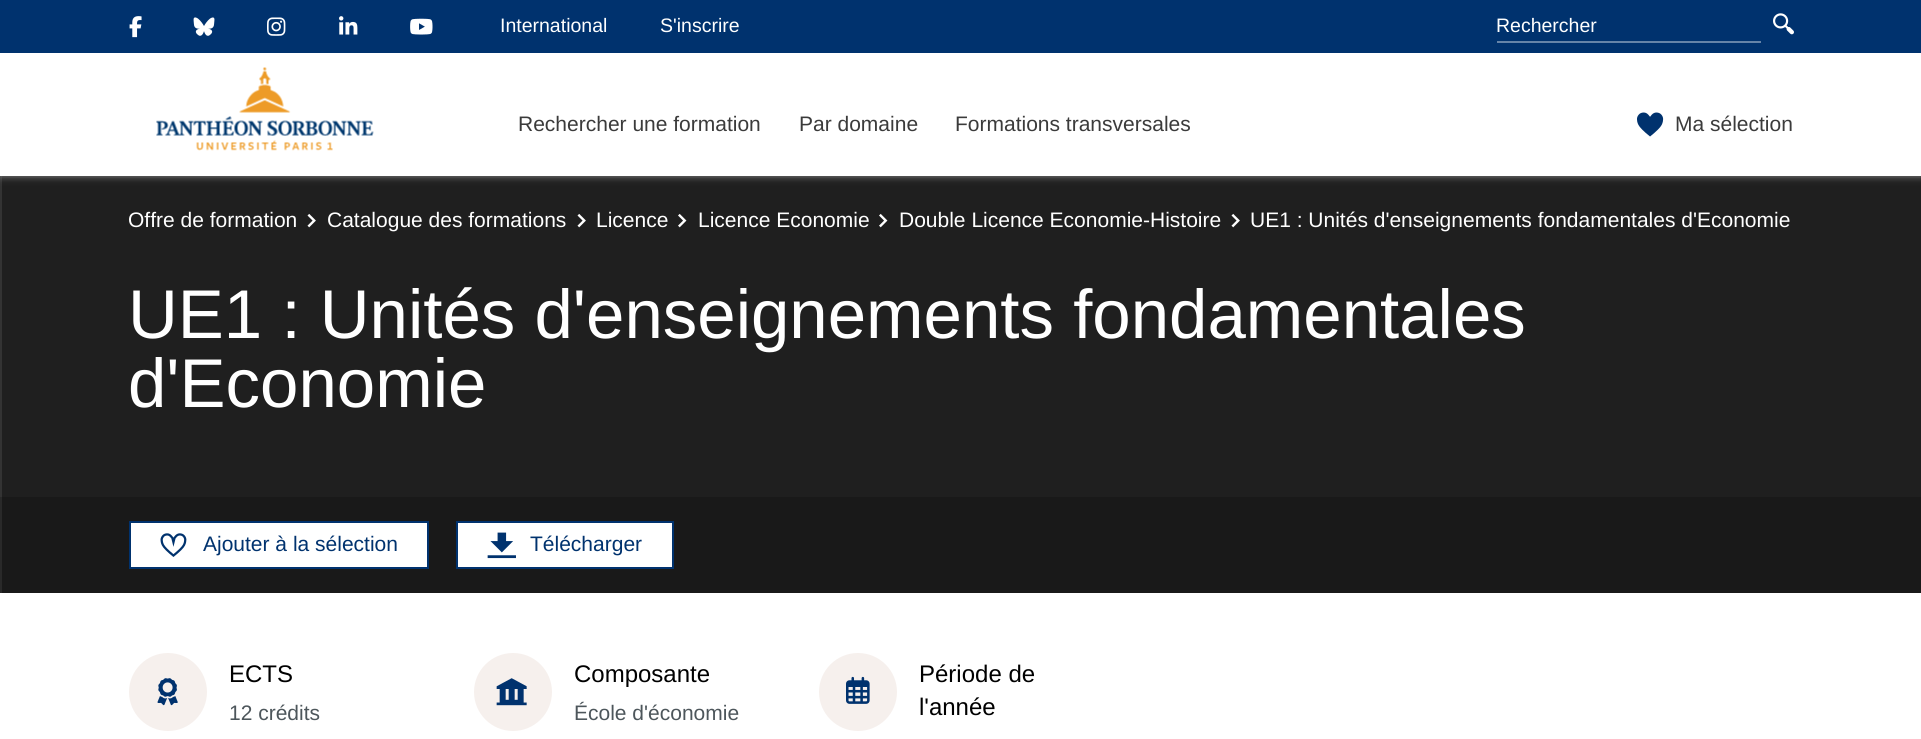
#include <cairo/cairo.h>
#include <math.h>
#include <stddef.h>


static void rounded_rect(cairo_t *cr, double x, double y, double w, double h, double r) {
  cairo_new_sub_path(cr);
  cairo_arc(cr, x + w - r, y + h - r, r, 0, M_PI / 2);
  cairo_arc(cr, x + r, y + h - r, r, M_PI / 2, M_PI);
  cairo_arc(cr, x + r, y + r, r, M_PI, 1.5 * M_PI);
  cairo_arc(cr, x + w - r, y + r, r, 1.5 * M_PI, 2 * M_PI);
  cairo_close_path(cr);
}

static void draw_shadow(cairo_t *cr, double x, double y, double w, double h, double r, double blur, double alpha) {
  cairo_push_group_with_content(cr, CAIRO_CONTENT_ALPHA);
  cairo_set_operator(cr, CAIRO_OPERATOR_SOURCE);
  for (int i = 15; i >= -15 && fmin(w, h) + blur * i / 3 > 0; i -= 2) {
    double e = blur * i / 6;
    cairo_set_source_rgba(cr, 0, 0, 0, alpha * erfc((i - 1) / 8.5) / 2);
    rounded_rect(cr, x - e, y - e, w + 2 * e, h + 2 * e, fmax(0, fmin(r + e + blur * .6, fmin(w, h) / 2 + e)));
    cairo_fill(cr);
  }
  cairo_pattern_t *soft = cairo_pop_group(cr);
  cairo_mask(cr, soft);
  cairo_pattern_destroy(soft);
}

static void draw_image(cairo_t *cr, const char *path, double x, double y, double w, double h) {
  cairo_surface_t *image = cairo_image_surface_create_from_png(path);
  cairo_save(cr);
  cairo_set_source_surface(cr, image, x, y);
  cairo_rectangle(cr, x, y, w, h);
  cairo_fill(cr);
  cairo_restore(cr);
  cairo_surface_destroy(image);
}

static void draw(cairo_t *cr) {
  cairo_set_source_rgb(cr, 1, 1, 1);
  cairo_paint(cr);
  cairo_set_source_rgb(cr, 51 / 255.0, 51 / 255.0, 51 / 255.0);
  cairo_rectangle(cr, 0, 176, 2, 321);
  cairo_fill(cr);
  cairo_set_source_rgb(cr, 31 / 255.0, 31 / 255.0, 31 / 255.0);
  cairo_rectangle(cr, 2, 176, 1919, 321);
  cairo_fill(cr);
  cairo_set_source_rgb(cr, 138 / 255.0, 138 / 255.0, 138 / 255.0);
  draw_shadow(cr, 0, 0, 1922, 176, 0, 4, 1);
  cairo_set_source_rgb(cr, 1, 1, 1);
  cairo_rectangle(cr, 0, 53, 1921, 123);
  cairo_fill(cr);
  cairo_set_source_rgb(cr, 0, 50 / 255.0, 110 / 255.0);
  cairo_rectangle(cr, 0, 0, 1921, 53);
  cairo_fill(cr);
  draw_image(cr, "images/1.png", 129, 16, 13, 22);
  draw_image(cr, "images/2.png", 193, 17, 22, 19);
  draw_image(cr, "images/3.png", 267, 17, 19, 19);
  draw_image(cr, "images/4.png", 339, 16, 19, 19);
  draw_image(cr, "images/5.png", 410, 18, 23, 17);
  cairo_set_source_rgb(cr, 102 / 255.0, 132 / 255.0, 168 / 255.0);
  cairo_rectangle(cr, 1497, 41, 264, 2);
  cairo_fill(cr);
  draw_image(cr, "images/6.png", 1773, 13, 21, 22);
  draw_image(cr, "images/7.png", 156, 67, 218, 84);
  draw_image(cr, "images/8.png", 1637, 112, 27, 25);
  cairo_set_source_rgb(cr, 41 / 255.0, 41 / 255.0, 41 / 255.0);
  cairo_rectangle(cr, 0, 497, 2, 96);
  cairo_fill(cr);
  cairo_set_source_rgb(cr, 25 / 255.0, 25 / 255.0, 25 / 255.0);
  cairo_rectangle(cr, 2, 497, 1919, 96);
  cairo_fill(cr);
  draw_image(cr, "images/9.png", 307, 213, 9, 15);
  draw_image(cr, "images/9.png", 577, 213, 9, 15);
  draw_image(cr, "images/10.png", 678, 213, 9, 15);
  draw_image(cr, "images/10.png", 879, 213, 9, 15);
  draw_image(cr, "images/9.png", 1231, 213, 9, 15);
  cairo_set_source_rgb(cr, 1, 1, 1);
  cairo_rectangle(cr, 130, 522, 298, 46);
  cairo_fill_preserve(cr);
  cairo_set_source_rgb(cr, 0, 50 / 255.0, 110 / 255.0);
  cairo_stroke(cr);
  draw_image(cr, "images/11.png", 160, 533, 27, 24);
  cairo_set_source_rgb(cr, 1, 1, 1);
  cairo_rectangle(cr, 457, 522, 216, 46);
  cairo_fill_preserve(cr);
  cairo_set_source_rgb(cr, 0, 50 / 255.0, 110 / 255.0);
  cairo_stroke(cr);
  draw_image(cr, "images/12.png", 487, 532, 29, 27);
  cairo_set_source_rgb(cr, 246 / 255.0, 240 / 255.0, 237 / 255.0);
  cairo_arc(cr, 168, 692, 39, 0, 2 * M_PI);
  cairo_fill(cr);
  draw_image(cr, "images/13.png", 157, 678, 21, 28);
  cairo_arc(cr, 513, 692, 39, 0, 2 * M_PI);
  cairo_fill(cr);
  draw_image(cr, "images/14.png", 496, 678, 31, 28);
  cairo_arc(cr, 858, 692, 39, 0, 2 * M_PI);
  cairo_fill(cr);
  draw_image(cr, "images/15.png", 846, 676, 24, 28);
  cairo_select_font_face(cr, "Liberation Sans", CAIRO_FONT_SLANT_NORMAL, CAIRO_FONT_WEIGHT_NORMAL);
  cairo_set_font_size(cr, 19.5);
  cairo_set_source_rgb(cr, 1, 1, 1);
  cairo_move_to(cr, 500, 32);
  cairo_show_text(cr, "International");
  cairo_move_to(cr, 660, 32);
  cairo_show_text(cr, "S'inscrire");
  cairo_move_to(cr, 1496, 32);
  cairo_show_text(cr, "Rechercher");
  cairo_set_font_size(cr, 21);
  cairo_set_source_rgb(cr, 59 / 255.0, 59 / 255.0, 59 / 255.0);
  cairo_move_to(cr, 518, 131);
  cairo_show_text(cr, "Rechercher une formation");
  cairo_move_to(cr, 799, 131);
  cairo_show_text(cr, "Par domaine");
  cairo_move_to(cr, 955, 131);
  cairo_show_text(cr, "Formations transversales");
  cairo_move_to(cr, 1675, 131);
  cairo_show_text(cr, "Ma sélection");
  cairo_set_source_rgb(cr, 1, 1, 1);
  cairo_move_to(cr, 128, 227);
  cairo_show_text(cr, "Offre de formation");
  cairo_move_to(cr, 327, 227);
  cairo_show_text(cr, "Catalogue des formations");
  cairo_move_to(cr, 596, 227);
  cairo_show_text(cr, "Licence");
  cairo_move_to(cr, 698, 227);
  cairo_show_text(cr, "Licence Economie");
  cairo_move_to(cr, 899, 227);
  cairo_show_text(cr, "Double Licence Economie-Histoire");
  cairo_move_to(cr, 1250, 227);
  cairo_show_text(cr, "UE1 : Unités d'enseignements fondamentales d'Economie");
  cairo_set_font_size(cr, 69);
  cairo_move_to(cr, 128, 338);
  cairo_show_text(cr, "UE1 : Unités d'enseignements fondamentales");
  cairo_move_to(cr, 128, 407);
  cairo_show_text(cr, "d'Economie");
  cairo_set_font_size(cr, 21);
  cairo_set_source_rgb(cr, 0, 50 / 255.0, 110 / 255.0);
  cairo_move_to(cr, 203, 551);
  cairo_show_text(cr, "Ajouter à la sélection");
  cairo_move_to(cr, 530, 551);
  cairo_show_text(cr, "Télécharger");
  cairo_set_font_size(cr, 24);
  cairo_set_source_rgb(cr, 0, 0, 0);
  cairo_move_to(cr, 229, 682);
  cairo_show_text(cr, "ECTS");
  cairo_set_font_size(cr, 21);
  cairo_set_source_rgb(cr, 77 / 255.0, 86 / 255.0, 91 / 255.0);
  cairo_move_to(cr, 229, 720);
  cairo_show_text(cr, "12 crédits");
  cairo_set_font_size(cr, 24);
  cairo_set_source_rgb(cr, 0, 0, 0);
  cairo_move_to(cr, 574, 682);
  cairo_show_text(cr, "Composante");
  cairo_set_font_size(cr, 21);
  cairo_set_source_rgb(cr, 77 / 255.0, 86 / 255.0, 91 / 255.0);
  cairo_move_to(cr, 574, 720);
  cairo_show_text(cr, "École d'économie");
  cairo_set_font_size(cr, 24);
  cairo_set_source_rgb(cr, 0, 0, 0);
  cairo_move_to(cr, 919, 682);
  cairo_show_text(cr, "Période de");
  cairo_move_to(cr, 919, 715);
  cairo_show_text(cr, "l'année");
}

int main(void) {
  cairo_surface_t *surface = cairo_image_surface_create(CAIRO_FORMAT_RGB24, 1921, 739);
  cairo_t *cr = cairo_create(surface);
  cairo_font_options_t *options = cairo_font_options_create();
  cairo_font_options_set_hint_metrics(options, CAIRO_HINT_METRICS_OFF);
  cairo_font_options_set_hint_style(options, CAIRO_HINT_STYLE_NONE);
  cairo_set_font_options(cr, options);
  cairo_set_miter_limit(cr, 4);
  draw(cr);
  cairo_surface_write_to_png(surface, "out.png");
  cairo_font_options_destroy(options);
  cairo_destroy(cr);
  cairo_surface_destroy(surface);
  return 0;
}
